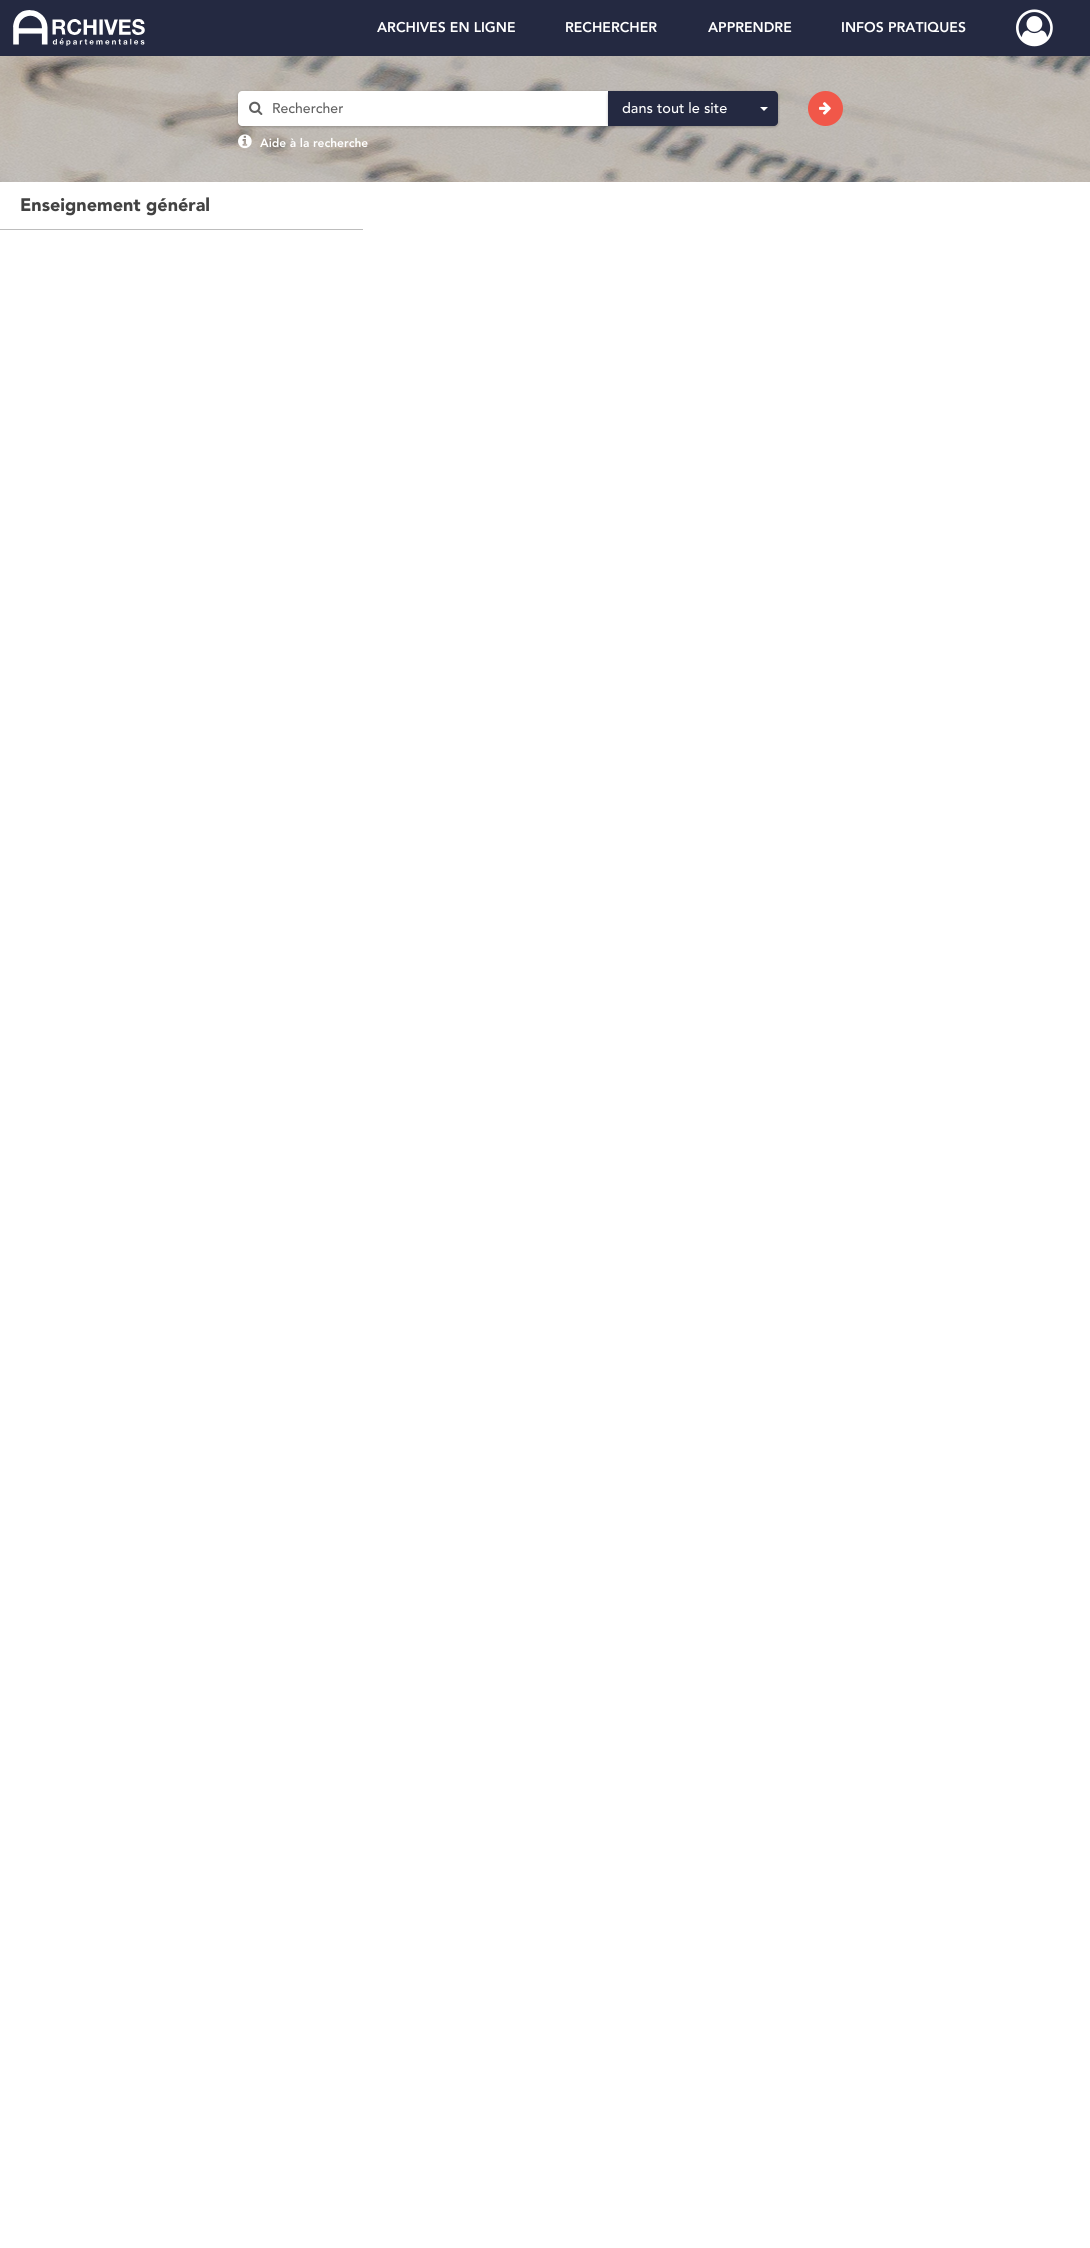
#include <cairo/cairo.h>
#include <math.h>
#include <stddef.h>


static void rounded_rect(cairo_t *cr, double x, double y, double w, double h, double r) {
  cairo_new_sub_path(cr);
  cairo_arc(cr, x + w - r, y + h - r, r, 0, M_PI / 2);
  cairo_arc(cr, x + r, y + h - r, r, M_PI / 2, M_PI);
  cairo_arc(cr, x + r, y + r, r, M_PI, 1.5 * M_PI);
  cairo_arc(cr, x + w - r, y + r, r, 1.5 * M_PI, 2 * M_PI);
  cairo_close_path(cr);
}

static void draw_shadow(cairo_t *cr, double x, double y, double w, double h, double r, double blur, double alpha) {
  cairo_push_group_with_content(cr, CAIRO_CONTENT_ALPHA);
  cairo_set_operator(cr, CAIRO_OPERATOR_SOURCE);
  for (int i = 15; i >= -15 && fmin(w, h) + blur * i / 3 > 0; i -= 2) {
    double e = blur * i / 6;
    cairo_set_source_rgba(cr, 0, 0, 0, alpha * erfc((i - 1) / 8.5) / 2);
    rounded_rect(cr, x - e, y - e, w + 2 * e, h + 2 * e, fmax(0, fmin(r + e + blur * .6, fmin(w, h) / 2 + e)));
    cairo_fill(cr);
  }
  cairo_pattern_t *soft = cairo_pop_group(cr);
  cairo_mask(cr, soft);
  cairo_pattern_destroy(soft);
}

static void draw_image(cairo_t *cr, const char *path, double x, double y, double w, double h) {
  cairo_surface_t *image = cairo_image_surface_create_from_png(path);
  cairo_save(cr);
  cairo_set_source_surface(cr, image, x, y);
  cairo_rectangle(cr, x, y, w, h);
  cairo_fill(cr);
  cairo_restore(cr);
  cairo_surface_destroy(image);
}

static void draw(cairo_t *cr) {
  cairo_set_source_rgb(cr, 1, 1, 1);
  cairo_paint(cr);
  cairo_set_source_rgb(cr, 36 / 255.0, 41 / 255.0, 65 / 255.0);
  cairo_rectangle(cr, 0, 0, 1090, 56);
  cairo_fill(cr);
  draw_image(cr, "images/1.png", 13, 10, 132, 36);
  draw_image(cr, "images/2.png", 1016, 9, 37, 38);
  draw_image(cr, "images/3.png", 0, 56, 1090, 126);
  cairo_set_source_rgb(cr, 0, 0, 0);
  draw_shadow(cr, 238, 92, 370, 35, 4, 1.5, 0.25);
  cairo_set_source_rgb(cr, 1, 1, 1);
  cairo_new_path(cr);
  cairo_move_to(cr, 242, 91);
  cairo_line_to(cr, 608, 91);
  cairo_line_to(cr, 608, 126);
  cairo_line_to(cr, 242, 126);
  cairo_curve_to(cr, 240, 126, 238, 124, 238, 122);
  cairo_line_to(cr, 238, 95);
  cairo_curve_to(cr, 238, 93, 240, 91, 242, 91);
  cairo_close_path(cr);
  cairo_fill(cr);
  draw_image(cr, "images/4.png", 249, 101, 14, 14);
  cairo_set_source_rgb(cr, 0, 0, 0);
  draw_shadow(cr, 608, 92, 170, 35, 4, 1.5, 0.25);
  cairo_set_source_rgb(cr, 36 / 255.0, 41 / 255.0, 65 / 255.0);
  cairo_new_path(cr);
  cairo_move_to(cr, 608, 91);
  cairo_line_to(cr, 774, 91);
  cairo_curve_to(cr, 776, 91, 778, 93, 778, 95);
  cairo_line_to(cr, 778, 122);
  cairo_curve_to(cr, 778, 124, 776, 126, 774, 126);
  cairo_line_to(cr, 608, 126);
  cairo_close_path(cr);
  cairo_fill(cr);
  cairo_set_source_rgb(cr, 1, 1, 1);
  cairo_new_path(cr);
  cairo_move_to(cr, 760, 107);
  cairo_line_to(cr, 768, 107);
  cairo_line_to(cr, 764, 111);
  cairo_close_path(cr);
  cairo_fill(cr);
  cairo_set_source_rgb(cr, 241 / 255.0, 87 / 255.0, 73 / 255.0);
  cairo_arc(cr, 825.5, 108.5, 17.5, 0, 2 * M_PI);
  cairo_fill(cr);
  draw_image(cr, "images/5.png", 819, 102, 12, 13);
  draw_image(cr, "images/6.png", 238, 134, 14, 15);
  cairo_set_source_rgb(cr, 189 / 255.0, 189 / 255.0, 189 / 255.0);
  cairo_rectangle(cr, 0, 229, 363, 1);
  cairo_fill(cr);
  cairo_select_font_face(cr, "Avenir Black", CAIRO_FONT_SLANT_NORMAL, CAIRO_FONT_WEIGHT_NORMAL);
  cairo_set_font_size(cr, 14);
  cairo_set_source_rgb(cr, 1, 1, 1);
  cairo_move_to(cr, 377, 32);
  cairo_show_text(cr, "ARCHIVES EN LIGNE");
  cairo_move_to(cr, 565, 32);
  cairo_show_text(cr, "RECHERCHER");
  cairo_move_to(cr, 708, 32);
  cairo_show_text(cr, "APPRENDRE");
  cairo_move_to(cr, 841, 32);
  cairo_show_text(cr, "INFOS PRATIQUES");
  cairo_select_font_face(cr, "Avenir Medium", CAIRO_FONT_SLANT_NORMAL, CAIRO_FONT_WEIGHT_NORMAL);
  cairo_set_source_rgb(cr, 97 / 255.0, 97 / 255.0, 97 / 255.0);
  cairo_move_to(cr, 272, 113);
  cairo_show_text(cr, "Rechercher");
  cairo_set_font_size(cr, 14.5);
  cairo_set_source_rgb(cr, 1, 1, 1);
  cairo_move_to(cr, 622, 113);
  cairo_show_text(cr, "dans tout le site");
  cairo_select_font_face(cr, "Avenir Black", CAIRO_FONT_SLANT_NORMAL, CAIRO_FONT_WEIGHT_NORMAL);
  cairo_set_font_size(cr, 12);
  cairo_move_to(cr, 260, 147);
  cairo_show_text(cr, "Aide à la recherche");
  cairo_select_font_face(cr, "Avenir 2 Black", CAIRO_FONT_SLANT_NORMAL, CAIRO_FONT_WEIGHT_NORMAL);
  cairo_set_font_size(cr, 18);
  cairo_set_source_rgb(cr, 66 / 255.0, 66 / 255.0, 66 / 255.0);
  cairo_move_to(cr, 20, 211);
  cairo_show_text(cr, "Enseignement général");
}

int main(void) {
  cairo_surface_t *surface = cairo_image_surface_create(CAIRO_FORMAT_RGB24, 1090, 2248);
  cairo_t *cr = cairo_create(surface);
  cairo_font_options_t *options = cairo_font_options_create();
  cairo_font_options_set_hint_metrics(options, CAIRO_HINT_METRICS_OFF);
  cairo_font_options_set_hint_style(options, CAIRO_HINT_STYLE_NONE);
  cairo_set_font_options(cr, options);
  cairo_set_miter_limit(cr, 4);
  draw(cr);
  cairo_surface_write_to_png(surface, "out.png");
  cairo_font_options_destroy(options);
  cairo_destroy(cr);
  cairo_surface_destroy(surface);
  return 0;
}
